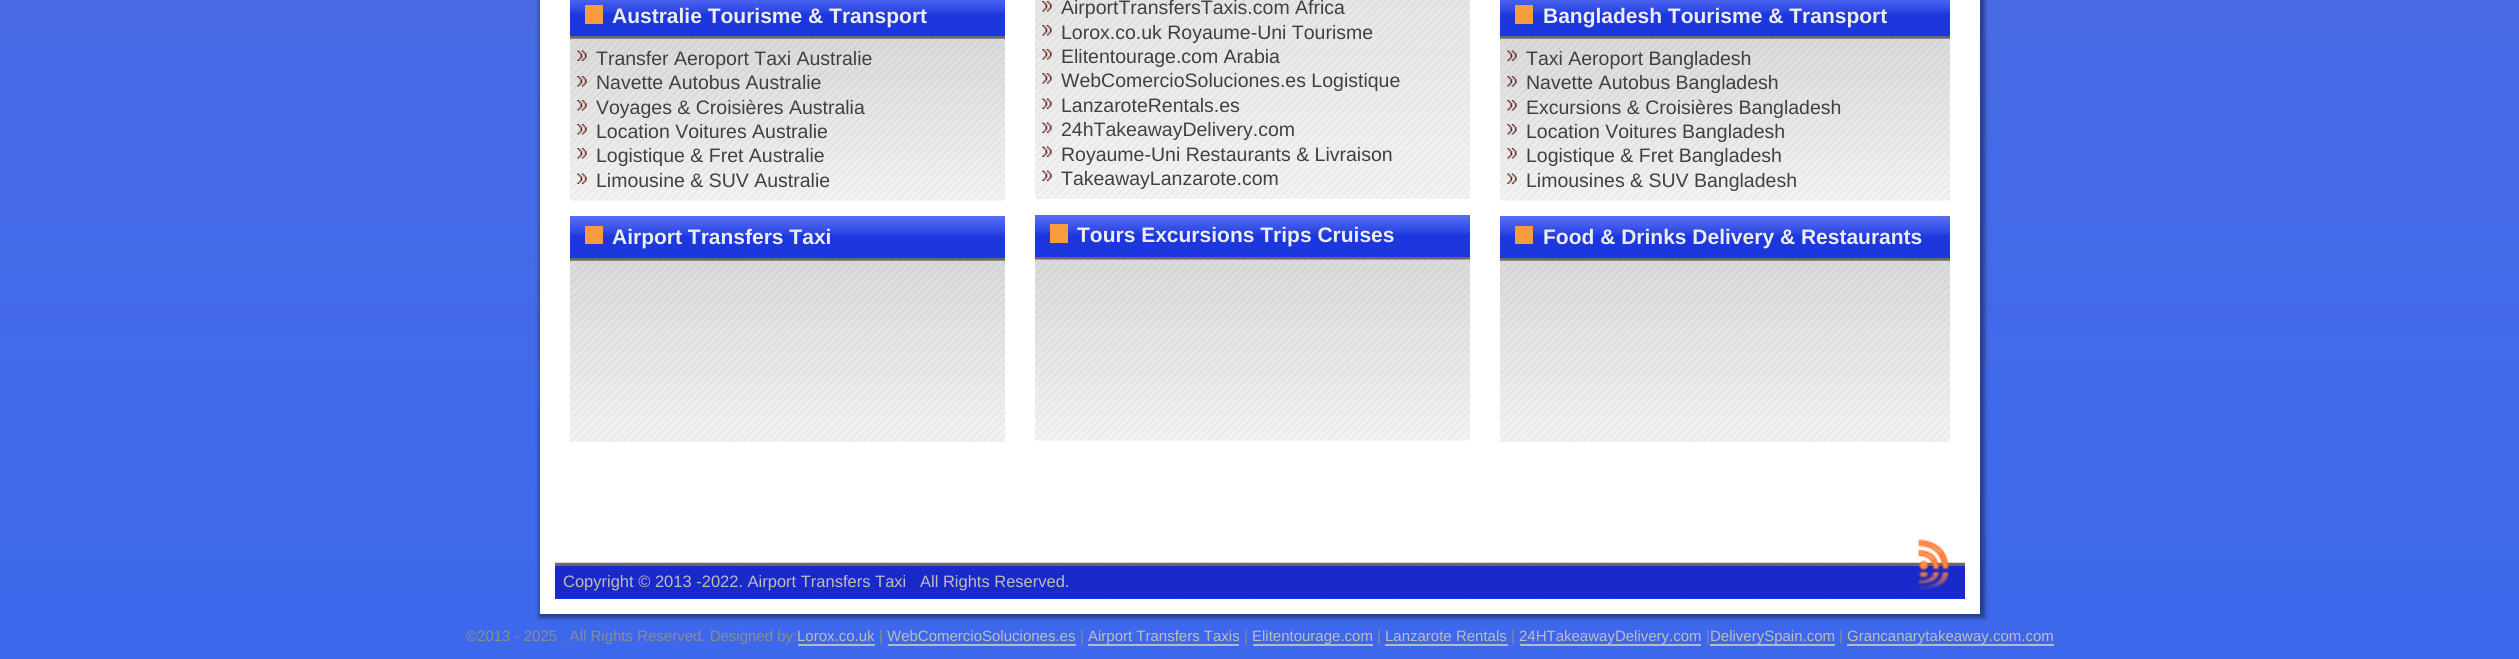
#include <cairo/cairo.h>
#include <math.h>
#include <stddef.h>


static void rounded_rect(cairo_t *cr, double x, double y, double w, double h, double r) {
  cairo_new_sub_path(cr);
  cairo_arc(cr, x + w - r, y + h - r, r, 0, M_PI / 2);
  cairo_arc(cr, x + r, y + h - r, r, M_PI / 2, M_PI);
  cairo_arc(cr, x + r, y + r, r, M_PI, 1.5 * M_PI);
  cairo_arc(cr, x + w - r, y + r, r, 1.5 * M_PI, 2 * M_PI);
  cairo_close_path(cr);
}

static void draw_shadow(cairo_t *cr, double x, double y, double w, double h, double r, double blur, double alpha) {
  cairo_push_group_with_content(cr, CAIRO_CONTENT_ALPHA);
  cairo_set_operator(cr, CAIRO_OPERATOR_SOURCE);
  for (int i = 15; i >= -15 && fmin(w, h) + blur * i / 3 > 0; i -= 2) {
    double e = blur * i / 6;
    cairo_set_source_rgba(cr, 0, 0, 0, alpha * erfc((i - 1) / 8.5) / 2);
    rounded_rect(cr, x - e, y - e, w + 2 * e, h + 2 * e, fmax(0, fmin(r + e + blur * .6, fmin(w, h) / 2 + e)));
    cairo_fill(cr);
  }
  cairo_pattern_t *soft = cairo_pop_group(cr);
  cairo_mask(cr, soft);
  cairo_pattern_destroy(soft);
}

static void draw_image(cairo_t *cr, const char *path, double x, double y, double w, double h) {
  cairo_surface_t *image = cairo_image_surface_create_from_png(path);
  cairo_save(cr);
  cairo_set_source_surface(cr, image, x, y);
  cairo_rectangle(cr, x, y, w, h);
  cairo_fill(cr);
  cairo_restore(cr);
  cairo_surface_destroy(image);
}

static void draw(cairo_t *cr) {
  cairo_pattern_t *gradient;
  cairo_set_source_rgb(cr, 1, 1, 1);
  cairo_paint(cr);
  gradient = cairo_pattern_create_linear(1260, 0, 1260, 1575);
  cairo_pattern_add_color_stop_rgba(gradient, 0, 69 / 255.0, 90 / 255.0, 226 / 255.0, 1);
  cairo_pattern_add_color_stop_rgba(gradient, 0.85, 54 / 255.0, 92 / 255.0, 243 / 255.0, 1);
  cairo_pattern_add_color_stop_rgba(gradient, 1, 35 / 255.0, 94 / 255.0, 209 / 255.0, 1);
  cairo_set_source(cr, gradient);
  cairo_pattern_destroy(gradient);
  cairo_rectangle(cr, 0, 0, 2519, 659);
  cairo_fill(cr);
  gradient = cairo_pattern_create_linear(1260, 0, 1260, 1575);
  cairo_pattern_add_color_stop_rgba(gradient, 0, 80 / 255.0, 161 / 255.0, 240 / 255.0, 0.25);
  cairo_pattern_add_color_stop_rgba(gradient, 0.85, 31 / 255.0, 104 / 255.0, 235 / 255.0, 0.35);
  cairo_pattern_add_color_stop_rgba(gradient, 1, 36 / 255.0, 108 / 255.0, 240 / 255.0, 0.42);
  cairo_set_source(cr, gradient);
  cairo_pattern_destroy(gradient);
  cairo_rectangle(cr, 0, 0, 2519, 659);
  cairo_fill(cr);
  cairo_set_source_rgb(cr, 0, 0, 0);
  draw_shadow(cr, 539, -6, 1446, 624, 0, 2, 0.4);
  cairo_set_source_rgb(cr, 1, 1, 1);
  cairo_rectangle(cr, 540, 0, 1440, 614);
  cairo_fill(cr);
  gradient = cairo_pattern_create_linear(788, -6, 788, 36);
  cairo_pattern_add_color_stop_rgba(gradient, 0, 98 / 255.0, 119 / 255.0, 247 / 255.0, 1);
  cairo_pattern_add_color_stop_rgba(gradient, 0.4, 46 / 255.0, 71 / 255.0, 225 / 255.0, 1);
  cairo_pattern_add_color_stop_rgba(gradient, 0.5, 25 / 255.0, 52 / 255.0, 218 / 255.0, 1);
  cairo_pattern_add_color_stop_rgba(gradient, 1, 25 / 255.0, 52 / 255.0, 218 / 255.0, 1);
  cairo_set_source(cr, gradient);
  cairo_pattern_destroy(gradient);
  cairo_rectangle(cr, 570, 0, 435, 36);
  cairo_fill(cr);
  cairo_set_source_rgba(cr, 36 / 255.0, 76 / 255.0, 239 / 255.0, 0.14);
  cairo_rectangle(cr, 570, 0, 435, 36);
  cairo_fill(cr);
  cairo_set_source_rgb(cr, 105 / 255.0, 105 / 255.0, 105 / 255.0);
  cairo_rectangle(cr, 570, 36, 435, 3);
  cairo_fill(cr);
  cairo_set_source_rgb(cr, 248 / 255.0, 156 / 255.0, 63 / 255.0);
  cairo_rectangle(cr, 585, 5, 18, 19);
  cairo_fill(cr);
  draw_image(cr, "images/1.png", 570, 38, 435, 163);
  draw_image(cr, "images/2.png", 577, 50, 10, 11);
  draw_image(cr, "images/3.png", 577, 76, 10, 11);
  draw_image(cr, "images/4.png", 577, 100, 10, 11);
  draw_image(cr, "images/5.png", 577, 124, 10, 11);
  draw_image(cr, "images/6.png", 577, 148, 10, 11);
  draw_image(cr, "images/7.png", 577, 173, 10, 11);
  gradient = cairo_pattern_create_linear(788, 216, 788, 258);
  cairo_pattern_add_color_stop_rgba(gradient, 0, 98 / 255.0, 119 / 255.0, 247 / 255.0, 1);
  cairo_pattern_add_color_stop_rgba(gradient, 0.4, 46 / 255.0, 71 / 255.0, 225 / 255.0, 1);
  cairo_pattern_add_color_stop_rgba(gradient, 0.5, 25 / 255.0, 52 / 255.0, 218 / 255.0, 1);
  cairo_pattern_add_color_stop_rgba(gradient, 1, 25 / 255.0, 52 / 255.0, 218 / 255.0, 1);
  cairo_set_source(cr, gradient);
  cairo_pattern_destroy(gradient);
  cairo_rectangle(cr, 570, 216, 435, 42);
  cairo_fill(cr);
  cairo_set_source_rgba(cr, 36 / 255.0, 76 / 255.0, 239 / 255.0, 0.14);
  cairo_rectangle(cr, 570, 216, 435, 42);
  cairo_fill(cr);
  cairo_set_source_rgb(cr, 105 / 255.0, 105 / 255.0, 105 / 255.0);
  cairo_rectangle(cr, 570, 258, 435, 3);
  cairo_fill(cr);
  cairo_set_source_rgb(cr, 248 / 255.0, 156 / 255.0, 63 / 255.0);
  cairo_rectangle(cr, 585, 226, 18, 18);
  cairo_fill(cr);
  draw_image(cr, "images/8.png", 570, 260, 435, 182);
  draw_image(cr, "images/9.png", 1035, 0, 435, 199);
  draw_image(cr, "images/10.png", 1042, 1, 10, 11);
  draw_image(cr, "images/11.png", 1042, 25, 10, 11);
  draw_image(cr, "images/12.png", 1042, 49, 10, 11);
  draw_image(cr, "images/13.png", 1042, 73, 10, 11);
  draw_image(cr, "images/14.png", 1042, 98, 10, 11);
  draw_image(cr, "images/15.png", 1042, 122, 10, 11);
  draw_image(cr, "images/16.png", 1042, 146, 10, 11);
  draw_image(cr, "images/17.png", 1042, 170, 10, 11);
  gradient = cairo_pattern_create_linear(1253, 214, 1253, 257);
  cairo_pattern_add_color_stop_rgba(gradient, 0, 98 / 255.0, 119 / 255.0, 247 / 255.0, 1);
  cairo_pattern_add_color_stop_rgba(gradient, 0.4, 46 / 255.0, 71 / 255.0, 225 / 255.0, 1);
  cairo_pattern_add_color_stop_rgba(gradient, 0.5, 25 / 255.0, 52 / 255.0, 218 / 255.0, 1);
  cairo_pattern_add_color_stop_rgba(gradient, 1, 25 / 255.0, 52 / 255.0, 218 / 255.0, 1);
  cairo_set_source(cr, gradient);
  cairo_pattern_destroy(gradient);
  cairo_rectangle(cr, 1035, 215, 435, 42);
  cairo_fill(cr);
  cairo_set_source_rgba(cr, 36 / 255.0, 76 / 255.0, 239 / 255.0, 0.14);
  cairo_rectangle(cr, 1035, 215, 435, 42);
  cairo_fill(cr);
  cairo_set_source_rgb(cr, 105 / 255.0, 105 / 255.0, 105 / 255.0);
  cairo_rectangle(cr, 1035, 257, 435, 3);
  cairo_fill(cr);
  cairo_set_source_rgb(cr, 248 / 255.0, 156 / 255.0, 63 / 255.0);
  cairo_rectangle(cr, 1050, 224, 18, 19);
  cairo_fill(cr);
  draw_image(cr, "images/18.png", 1035, 259, 435, 182);
  gradient = cairo_pattern_create_linear(1725, -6, 1725, 36);
  cairo_pattern_add_color_stop_rgba(gradient, 0, 98 / 255.0, 119 / 255.0, 247 / 255.0, 1);
  cairo_pattern_add_color_stop_rgba(gradient, 0.4, 46 / 255.0, 71 / 255.0, 225 / 255.0, 1);
  cairo_pattern_add_color_stop_rgba(gradient, 0.5, 25 / 255.0, 52 / 255.0, 218 / 255.0, 1);
  cairo_pattern_add_color_stop_rgba(gradient, 1, 25 / 255.0, 52 / 255.0, 218 / 255.0, 1);
  cairo_set_source(cr, gradient);
  cairo_pattern_destroy(gradient);
  cairo_rectangle(cr, 1500, 0, 450, 36);
  cairo_fill(cr);
  cairo_set_source_rgba(cr, 36 / 255.0, 76 / 255.0, 239 / 255.0, 0.14);
  cairo_rectangle(cr, 1500, 0, 450, 36);
  cairo_fill(cr);
  cairo_set_source_rgb(cr, 105 / 255.0, 105 / 255.0, 105 / 255.0);
  cairo_rectangle(cr, 1500, 36, 450, 3);
  cairo_fill(cr);
  cairo_set_source_rgb(cr, 248 / 255.0, 156 / 255.0, 63 / 255.0);
  cairo_rectangle(cr, 1515, 5, 18, 19);
  cairo_fill(cr);
  draw_image(cr, "images/19.png", 1500, 38, 450, 163);
  draw_image(cr, "images/2.png", 1507, 50, 10, 11);
  draw_image(cr, "images/3.png", 1507, 76, 10, 11);
  draw_image(cr, "images/4.png", 1507, 100, 10, 11);
  draw_image(cr, "images/5.png", 1507, 124, 10, 11);
  draw_image(cr, "images/6.png", 1507, 148, 10, 11);
  draw_image(cr, "images/7.png", 1507, 173, 10, 11);
  gradient = cairo_pattern_create_linear(1725, 216, 1725, 258);
  cairo_pattern_add_color_stop_rgba(gradient, 0, 98 / 255.0, 119 / 255.0, 247 / 255.0, 1);
  cairo_pattern_add_color_stop_rgba(gradient, 0.4, 46 / 255.0, 71 / 255.0, 225 / 255.0, 1);
  cairo_pattern_add_color_stop_rgba(gradient, 0.5, 25 / 255.0, 52 / 255.0, 218 / 255.0, 1);
  cairo_pattern_add_color_stop_rgba(gradient, 1, 25 / 255.0, 52 / 255.0, 218 / 255.0, 1);
  cairo_set_source(cr, gradient);
  cairo_pattern_destroy(gradient);
  cairo_rectangle(cr, 1500, 216, 450, 42);
  cairo_fill(cr);
  cairo_set_source_rgba(cr, 36 / 255.0, 76 / 255.0, 239 / 255.0, 0.14);
  cairo_rectangle(cr, 1500, 216, 450, 42);
  cairo_fill(cr);
  cairo_set_source_rgb(cr, 105 / 255.0, 105 / 255.0, 105 / 255.0);
  cairo_rectangle(cr, 1500, 258, 450, 3);
  cairo_fill(cr);
  cairo_set_source_rgb(cr, 248 / 255.0, 156 / 255.0, 63 / 255.0);
  cairo_rectangle(cr, 1515, 226, 18, 18);
  cairo_fill(cr);
  draw_image(cr, "images/20.png", 1500, 260, 450, 182);
  cairo_set_source_rgb(cr, 16 / 255.0, 48 / 255.0, 242 / 255.0);
  cairo_rectangle(cr, 555, 566, 1410, 33);
  cairo_fill(cr);
  draw_image(cr, "images/21.png", 555, 562, 1410, 36);
  cairo_set_source_rgb(cr, 105 / 255.0, 105 / 255.0, 105 / 255.0);
  cairo_rectangle(cr, 555, 563, 1410, 3);
  cairo_fill(cr);
  draw_image(cr, "images/22.png", 1918, 539, 31, 51);
  cairo_set_source_rgb(cr, 186 / 255.0, 186 / 255.0, 186 / 255.0);
  cairo_rectangle(cr, 798, 644, 77, 2);
  cairo_fill(cr);
  cairo_rectangle(cr, 888, 644, 188, 2);
  cairo_fill(cr);
  cairo_rectangle(cr, 1088, 644, 151, 2);
  cairo_fill(cr);
  cairo_rectangle(cr, 1253, 644, 120, 2);
  cairo_fill(cr);
  cairo_rectangle(cr, 1385, 644, 123, 2);
  cairo_fill(cr);
  cairo_rectangle(cr, 1520, 644, 181, 2);
  cairo_fill(cr);
  cairo_rectangle(cr, 1710, 644, 125, 2);
  cairo_fill(cr);
  cairo_rectangle(cr, 1847, 644, 207, 2);
  cairo_fill(cr);
  cairo_select_font_face(cr, "Liberation Sans", CAIRO_FONT_SLANT_NORMAL, CAIRO_FONT_WEIGHT_BOLD);
  cairo_set_font_size(cr, 21);
  cairo_set_source_rgb(cr, 237 / 255.0, 237 / 255.0, 237 / 255.0);
  cairo_move_to(cr, 612, 23);
  cairo_show_text(cr, "Australie Tourisme & Transport");
  cairo_select_font_face(cr, "Liberation Sans", CAIRO_FONT_SLANT_NORMAL, CAIRO_FONT_WEIGHT_NORMAL);
  cairo_set_font_size(cr, 19.5);
  cairo_set_source_rgb(cr, 64 / 255.0, 64 / 255.0, 64 / 255.0);
  cairo_move_to(cr, 596, 65);
  cairo_show_text(cr, "Transfer Aeroport Taxi Australie");
  cairo_move_to(cr, 596, 89);
  cairo_show_text(cr, "Navette Autobus Australie");
  cairo_move_to(cr, 596, 114);
  cairo_show_text(cr, "Voyages & Croisières Australia");
  cairo_move_to(cr, 596, 138);
  cairo_show_text(cr, "Location Voitures Australie");
  cairo_move_to(cr, 596, 162);
  cairo_show_text(cr, "Logistique & Fret Australie");
  cairo_move_to(cr, 596, 187);
  cairo_show_text(cr, "Limousine & SUV Australie");
  cairo_select_font_face(cr, "Liberation Sans", CAIRO_FONT_SLANT_NORMAL, CAIRO_FONT_WEIGHT_BOLD);
  cairo_set_font_size(cr, 21);
  cairo_set_source_rgb(cr, 237 / 255.0, 237 / 255.0, 237 / 255.0);
  cairo_move_to(cr, 612, 244);
  cairo_show_text(cr, "Airport Transfers Taxi");
  cairo_select_font_face(cr, "Liberation Sans", CAIRO_FONT_SLANT_NORMAL, CAIRO_FONT_WEIGHT_NORMAL);
  cairo_set_font_size(cr, 19.5);
  cairo_set_source_rgb(cr, 64 / 255.0, 64 / 255.0, 64 / 255.0);
  cairo_move_to(cr, 1061, 14);
  cairo_show_text(cr, "AirportTransfersTaxis.com Africa");
  cairo_move_to(cr, 1061, 39);
  cairo_show_text(cr, "Lorox.co.uk Royaume-Uni Tourisme");
  cairo_move_to(cr, 1061, 63);
  cairo_show_text(cr, "Elitentourage.com Arabia");
  cairo_move_to(cr, 1061, 87);
  cairo_show_text(cr, "WebComercioSoluciones.es Logistique");
  cairo_move_to(cr, 1061, 112);
  cairo_show_text(cr, "LanzaroteRentals.es");
  cairo_move_to(cr, 1061, 136);
  cairo_show_text(cr, "24hTakeawayDelivery.com");
  cairo_move_to(cr, 1061, 161);
  cairo_show_text(cr, "Royaume-Uni Restaurants & Livraison");
  cairo_move_to(cr, 1061, 185);
  cairo_show_text(cr, "TakeawayLanzarote.com");
  cairo_select_font_face(cr, "Liberation Sans", CAIRO_FONT_SLANT_NORMAL, CAIRO_FONT_WEIGHT_BOLD);
  cairo_set_font_size(cr, 21);
  cairo_set_source_rgb(cr, 237 / 255.0, 237 / 255.0, 237 / 255.0);
  cairo_move_to(cr, 1077, 242);
  cairo_show_text(cr, "Tours Excursions Trips Cruises");
  cairo_move_to(cr, 1543, 23);
  cairo_show_text(cr, "Bangladesh Tourisme & Transport");
  cairo_select_font_face(cr, "Liberation Sans", CAIRO_FONT_SLANT_NORMAL, CAIRO_FONT_WEIGHT_NORMAL);
  cairo_set_font_size(cr, 19.5);
  cairo_set_source_rgb(cr, 64 / 255.0, 64 / 255.0, 64 / 255.0);
  cairo_move_to(cr, 1526, 65);
  cairo_show_text(cr, "Taxi Aeroport Bangladesh");
  cairo_move_to(cr, 1526, 89);
  cairo_show_text(cr, "Navette Autobus Bangladesh");
  cairo_move_to(cr, 1526, 114);
  cairo_show_text(cr, "Excursions & Croisières Bangladesh");
  cairo_move_to(cr, 1526, 138);
  cairo_show_text(cr, "Location Voitures Bangladesh");
  cairo_move_to(cr, 1526, 162);
  cairo_show_text(cr, "Logistique & Fret Bangladesh");
  cairo_move_to(cr, 1526, 187);
  cairo_show_text(cr, "Limousines & SUV Bangladesh");
  cairo_select_font_face(cr, "Liberation Sans", CAIRO_FONT_SLANT_NORMAL, CAIRO_FONT_WEIGHT_BOLD);
  cairo_set_font_size(cr, 21);
  cairo_set_source_rgb(cr, 237 / 255.0, 237 / 255.0, 237 / 255.0);
  cairo_move_to(cr, 1543, 244);
  cairo_show_text(cr, "Food & Drinks Delivery & Restaurants");
  cairo_select_font_face(cr, "Liberation Sans", CAIRO_FONT_SLANT_NORMAL, CAIRO_FONT_WEIGHT_NORMAL);
  cairo_set_font_size(cr, 16.5);
  cairo_set_source_rgb(cr, 189 / 255.0, 189 / 255.0, 189 / 255.0);
  cairo_move_to(cr, 563, 587);
  cairo_show_text(cr, "Copyright © 2013 -2022. Airport Transfers Taxi   All Rights Reserved.");
  cairo_set_font_size(cr, 15);
  cairo_set_source_rgb(cr, 140 / 255.0, 140 / 255.0, 140 / 255.0);
  cairo_move_to(cr, 466, 641);
  cairo_show_text(cr, "©2013 - 2025 . All Rights Reserved. Designed by:");
  cairo_set_source_rgb(cr, 189 / 255.0, 189 / 255.0, 189 / 255.0);
  cairo_move_to(cr, 797, 641);
  cairo_show_text(cr, "Lorox.co.uk");
  cairo_set_source_rgb(cr, 140 / 255.0, 140 / 255.0, 140 / 255.0);
  cairo_move_to(cr, 879, 641);
  cairo_show_text(cr, "|");
  cairo_set_source_rgb(cr, 189 / 255.0, 189 / 255.0, 189 / 255.0);
  cairo_move_to(cr, 887, 641);
  cairo_show_text(cr, "WebComercioSoluciones.es");
  cairo_set_source_rgb(cr, 140 / 255.0, 140 / 255.0, 140 / 255.0);
  cairo_move_to(cr, 1080, 641);
  cairo_show_text(cr, "|");
  cairo_set_source_rgb(cr, 189 / 255.0, 189 / 255.0, 189 / 255.0);
  cairo_move_to(cr, 1088, 641);
  cairo_show_text(cr, "Airport Transfers Taxis");
  cairo_set_source_rgb(cr, 140 / 255.0, 140 / 255.0, 140 / 255.0);
  cairo_move_to(cr, 1244, 641);
  cairo_show_text(cr, "|");
  cairo_set_source_rgb(cr, 189 / 255.0, 189 / 255.0, 189 / 255.0);
  cairo_move_to(cr, 1252, 641);
  cairo_show_text(cr, "Elitentourage.com");
  cairo_set_source_rgb(cr, 140 / 255.0, 140 / 255.0, 140 / 255.0);
  cairo_move_to(cr, 1377, 641);
  cairo_show_text(cr, "|");
  cairo_set_source_rgb(cr, 189 / 255.0, 189 / 255.0, 189 / 255.0);
  cairo_move_to(cr, 1385, 641);
  cairo_show_text(cr, "Lanzarote Rentals");
  cairo_set_source_rgb(cr, 140 / 255.0, 140 / 255.0, 140 / 255.0);
  cairo_move_to(cr, 1511, 641);
  cairo_show_text(cr, "|");
  cairo_set_source_rgb(cr, 189 / 255.0, 189 / 255.0, 189 / 255.0);
  cairo_move_to(cr, 1519, 641);
  cairo_show_text(cr, "24HTakeawayDelivery.com");
  cairo_set_source_rgb(cr, 140 / 255.0, 140 / 255.0, 140 / 255.0);
  cairo_move_to(cr, 1706, 641);
  cairo_show_text(cr, "|");
  cairo_set_source_rgb(cr, 189 / 255.0, 189 / 255.0, 189 / 255.0);
  cairo_move_to(cr, 1710, 641);
  cairo_show_text(cr, "DeliverySpain.com");
  cairo_set_source_rgb(cr, 140 / 255.0, 140 / 255.0, 140 / 255.0);
  cairo_move_to(cr, 1839, 641);
  cairo_show_text(cr, "|");
  cairo_set_source_rgb(cr, 189 / 255.0, 189 / 255.0, 189 / 255.0);
  cairo_move_to(cr, 1847, 641);
  cairo_show_text(cr, "Grancanarytakeaway.com.com");
}

int main(void) {
  cairo_surface_t *surface = cairo_image_surface_create(CAIRO_FORMAT_RGB24, 2519, 659);
  cairo_t *cr = cairo_create(surface);
  cairo_font_options_t *options = cairo_font_options_create();
  cairo_font_options_set_hint_metrics(options, CAIRO_HINT_METRICS_OFF);
  cairo_font_options_set_hint_style(options, CAIRO_HINT_STYLE_NONE);
  cairo_set_font_options(cr, options);
  cairo_set_miter_limit(cr, 4);
  draw(cr);
  cairo_surface_write_to_png(surface, "out.png");
  cairo_font_options_destroy(options);
  cairo_destroy(cr);
  cairo_surface_destroy(surface);
  return 0;
}
